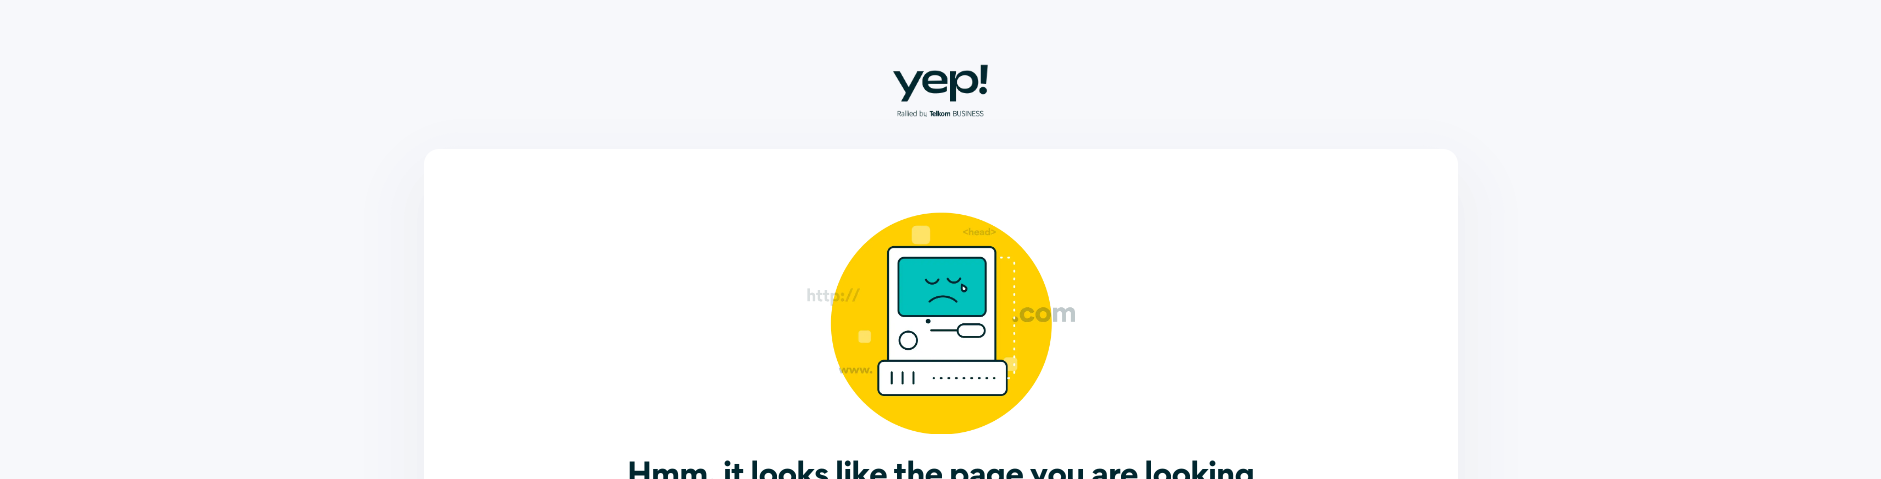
#include <cairo/cairo.h>
#include <math.h>
#include <stddef.h>


static void draw_spaced(cairo_t *cr, double x, double y, const char *s, double letter, double word) {
  cairo_move_to(cr, x, y);
  while (*s) {
    char ch[5] = {0};
    int n = 0;
    do ch[n++] = *s++; while ((*s & 0xC0) == 0x80);
    cairo_show_text(cr, ch);
    cairo_rel_move_to(cr, letter + word * (*ch == ' '), 0);
  }
}

static void rounded_rect(cairo_t *cr, double x, double y, double w, double h, double r) {
  cairo_new_sub_path(cr);
  cairo_arc(cr, x + w - r, y + h - r, r, 0, M_PI / 2);
  cairo_arc(cr, x + r, y + h - r, r, M_PI / 2, M_PI);
  cairo_arc(cr, x + r, y + r, r, M_PI, 1.5 * M_PI);
  cairo_arc(cr, x + w - r, y + r, r, 1.5 * M_PI, 2 * M_PI);
  cairo_close_path(cr);
}

static void draw_shadow(cairo_t *cr, double x, double y, double w, double h, double r, double blur, double alpha) {
  cairo_push_group_with_content(cr, CAIRO_CONTENT_ALPHA);
  cairo_set_operator(cr, CAIRO_OPERATOR_SOURCE);
  for (int i = 15; i >= -15 && fmin(w, h) + blur * i / 3 > 0; i -= 2) {
    double e = blur * i / 6;
    cairo_set_source_rgba(cr, 0, 0, 0, alpha * erfc((i - 1) / 8.5) / 2);
    rounded_rect(cr, x - e, y - e, w + 2 * e, h + 2 * e, fmax(0, fmin(r + e + blur * .6, fmin(w, h) / 2 + e)));
    cairo_fill(cr);
  }
  cairo_pattern_t *soft = cairo_pop_group(cr);
  cairo_mask(cr, soft);
  cairo_pattern_destroy(soft);
}

static void draw_image(cairo_t *cr, const char *path, double x, double y, double w, double h) {
  cairo_surface_t *image = cairo_image_surface_create_from_png(path);
  cairo_save(cr);
  cairo_set_source_surface(cr, image, x, y);
  cairo_rectangle(cr, x, y, w, h);
  cairo_fill(cr);
  cairo_restore(cr);
  cairo_surface_destroy(image);
}

static void draw(cairo_t *cr) {
  cairo_set_source_rgb(cr, 247 / 255.0, 248 / 255.0, 251 / 255.0);
  cairo_paint(cr);
  cairo_set_source_rgb(cr, 39 / 255.0, 40 / 255.0, 73 / 255.0);
  draw_shadow(cr, 424, 179, 1034, 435, 15, 40, 0.06);
  draw_image(cr, "images/1.png", 893, 64, 95, 53);
  cairo_set_source_rgb(cr, 1, 1, 1);
  rounded_rect(cr, 424, 149, 1034, 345, 15);
  cairo_fill(cr);
  draw_image(cr, "images/2.png", 807, 212, 268, 222);
  cairo_select_font_face(cr, "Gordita", CAIRO_FONT_SLANT_NORMAL, CAIRO_FONT_WEIGHT_BOLD);
  cairo_set_font_size(cr, 30);
  cairo_set_source_rgb(cr, 1 / 255.0, 39 / 255.0, 47 / 255.0);
  draw_spaced(cr, 627, 485, "Hmm, it looks like the page you are looking", -0.9, 0);
}

int main(void) {
  cairo_surface_t *surface = cairo_image_surface_create(CAIRO_FORMAT_RGB24, 1881, 479);
  cairo_t *cr = cairo_create(surface);
  cairo_font_options_t *options = cairo_font_options_create();
  cairo_font_options_set_hint_metrics(options, CAIRO_HINT_METRICS_OFF);
  cairo_font_options_set_hint_style(options, CAIRO_HINT_STYLE_NONE);
  cairo_set_font_options(cr, options);
  cairo_set_miter_limit(cr, 4);
  draw(cr);
  cairo_surface_write_to_png(surface, "out.png");
  cairo_font_options_destroy(options);
  cairo_destroy(cr);
  cairo_surface_destroy(surface);
  return 0;
}
